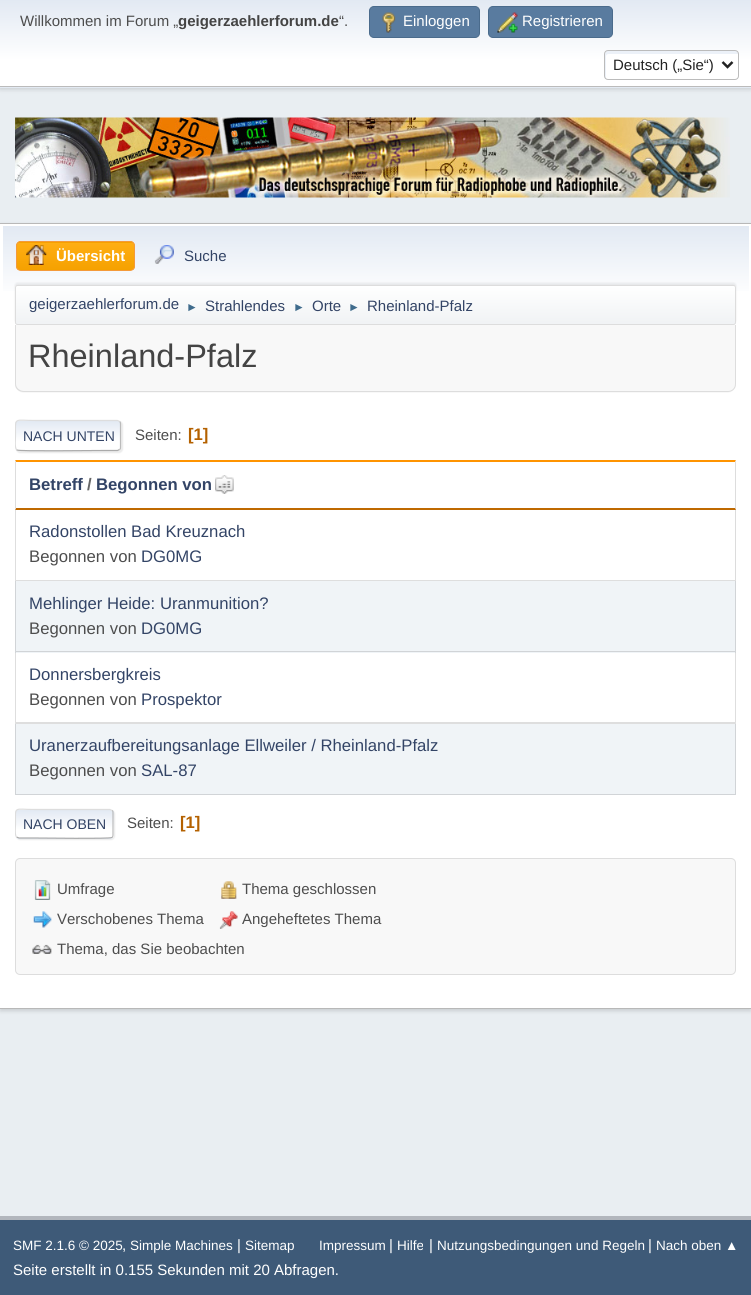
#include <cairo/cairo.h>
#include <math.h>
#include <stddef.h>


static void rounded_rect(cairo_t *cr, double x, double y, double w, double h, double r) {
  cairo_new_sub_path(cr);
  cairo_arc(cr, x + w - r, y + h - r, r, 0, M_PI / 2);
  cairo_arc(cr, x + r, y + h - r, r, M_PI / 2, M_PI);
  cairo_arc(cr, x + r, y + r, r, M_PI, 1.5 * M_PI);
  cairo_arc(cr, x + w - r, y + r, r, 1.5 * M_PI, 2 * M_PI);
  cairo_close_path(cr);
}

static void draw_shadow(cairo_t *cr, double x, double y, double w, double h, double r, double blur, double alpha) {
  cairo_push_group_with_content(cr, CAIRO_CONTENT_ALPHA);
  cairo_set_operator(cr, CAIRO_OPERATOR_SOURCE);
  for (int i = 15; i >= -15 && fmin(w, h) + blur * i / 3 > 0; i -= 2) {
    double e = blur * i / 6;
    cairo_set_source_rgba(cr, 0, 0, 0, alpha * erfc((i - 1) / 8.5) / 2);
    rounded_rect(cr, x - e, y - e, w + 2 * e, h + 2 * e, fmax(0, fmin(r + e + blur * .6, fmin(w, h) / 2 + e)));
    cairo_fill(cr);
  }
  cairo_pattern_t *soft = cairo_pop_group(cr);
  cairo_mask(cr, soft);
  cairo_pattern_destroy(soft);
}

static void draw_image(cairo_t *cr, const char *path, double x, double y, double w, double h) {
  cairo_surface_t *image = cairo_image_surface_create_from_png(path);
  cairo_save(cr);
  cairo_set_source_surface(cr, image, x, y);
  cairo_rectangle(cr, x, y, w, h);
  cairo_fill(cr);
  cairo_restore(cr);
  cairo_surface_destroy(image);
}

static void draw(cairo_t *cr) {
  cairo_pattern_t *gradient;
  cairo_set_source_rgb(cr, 233 / 255.0, 238 / 255.0, 242 / 255.0);
  cairo_paint(cr);
  cairo_set_source_rgb(cr, 0, 0, 0);
  draw_shadow(cr, 0, 1, 751, 88, 0, 2.5, 0.16);
  gradient = cairo_pattern_create_linear(376, 0, 376, 86);
  cairo_pattern_add_color_stop_rgba(gradient, 0, 226 / 255.0, 233 / 255.0, 243 / 255.0, 1);
  cairo_pattern_add_color_stop_rgba(gradient, 0.7, 1, 1, 1, 1);
  cairo_set_source(cr, gradient);
  cairo_pattern_destroy(gradient);
  cairo_rectangle(cr, 0, 0, 751, 86);
  cairo_fill(cr);
  gradient = cairo_pattern_create_linear(376, 86, 376, 173);
  cairo_pattern_add_color_stop_rgba(gradient, 0, 226 / 255.0, 233 / 255.0, 243 / 255.0, 1);
  cairo_pattern_add_color_stop_rgba(gradient, 0.7, 1, 1, 1, 1);
  cairo_set_source(cr, gradient);
  cairo_pattern_destroy(gradient);
  cairo_rectangle(cr, 0, 87, 751, 1);
  cairo_fill(cr);
  cairo_set_source_rgb(cr, 187 / 255.0, 187 / 255.0, 187 / 255.0);
  cairo_rectangle(cr, 0, 86, 751, 1);
  cairo_fill(cr);
  cairo_set_source_rgb(cr, 89 / 255.0, 123 / 255.0, 159 / 255.0);
  rounded_rect(cr, 369.5, 6.5, 110, 31, 4.5);
  cairo_fill_preserve(cr);
  cairo_set_source_rgb(cr, 74 / 255.0, 107 / 255.0, 140 / 255.0);
  cairo_set_line_width(cr, 1);
  cairo_stroke(cr);
  draw_image(cr, "images/1.png", 382, 12, 14, 21);
  cairo_set_source_rgb(cr, 89 / 255.0, 123 / 255.0, 159 / 255.0);
  rounded_rect(cr, 488.5, 6.5, 124, 31, 4.5);
  cairo_fill_preserve(cr);
  cairo_set_source_rgb(cr, 74 / 255.0, 107 / 255.0, 140 / 255.0);
  cairo_stroke(cr);
  draw_image(cr, "images/2.png", 497, 12, 21, 21);
  cairo_set_source_rgb(cr, 1, 1, 1);
  rounded_rect(cr, 604, 50, 135, 30, 4);
  cairo_fill(cr);
  cairo_set_source_rgb(cr, 236 / 255.0, 241 / 255.0, 248 / 255.0);
  cairo_new_path(cr);
  cairo_move_to(cr, 609, 54);
  cairo_line_to(cr, 736, 54);
  cairo_line_to(cr, 738, 54);
  cairo_curve_to(cr, 738, 52, 737, 51, 736, 51);
  cairo_line_to(cr, 608, 51);
  cairo_curve_to(cr, 606, 51, 605, 52, 605, 54);
  cairo_line_to(cr, 605, 76);
  cairo_curve_to(cr, 605, 77, 605, 78, 606, 79);
  cairo_line_to(cr, 606, 56);
  cairo_curve_to(cr, 606, 55, 607, 54, 609, 54);
  cairo_close_path(cr);
  cairo_fill(cr);
  rounded_rect(cr, 604.5, 50.5, 134, 29, 3.5);
  cairo_set_source_rgb(cr, 187 / 255.0, 187 / 255.0, 187 / 255.0);
  cairo_stroke(cr);
  cairo_new_path(cr);
  cairo_move_to(cr, 722.5, 62);
  cairo_line_to(cr, 727.5, 67);
  cairo_line_to(cr, 732.5, 62);
  cairo_set_source_rgb(cr, 34 / 255.0, 34 / 255.0, 34 / 255.0);
  cairo_set_line_width(cr, 2.5);
  cairo_stroke(cr);
  draw_image(cr, "images/3.png", 15, 117, 715, 81);
  cairo_set_source_rgb(cr, 0, 0, 0);
  draw_shadow(cr, 0, 225, 751, 786, 0, 2, 0.14);
  cairo_set_source_rgb(cr, 1, 1, 1);
  cairo_rectangle(cr, 0, 224, 751, 784);
  cairo_fill(cr);
  cairo_set_source_rgb(cr, 184 / 255.0, 184 / 255.0, 184 / 255.0);
  cairo_rectangle(cr, 0, 223, 751, 1);
  cairo_fill(cr);
  cairo_rectangle(cr, 0, 1008, 751, 1);
  cairo_fill(cr);
  gradient = cairo_pattern_create_linear(376, 226, 376, 328);
  cairo_pattern_add_color_stop_rgba(gradient, 0, 226 / 255.0, 233 / 255.0, 243 / 255.0, 1);
  cairo_pattern_add_color_stop_rgba(gradient, 0.7, 1, 1, 1, 1);
  cairo_set_source(cr, gradient);
  cairo_pattern_destroy(gradient);
  cairo_rectangle(cr, 3, 226, 746, 65);
  cairo_fill(cr);
  cairo_save(cr);
  rounded_rect(cr, 16, 241, 119, 30, 5);
  cairo_clip(cr);
  gradient = cairo_pattern_create_linear(76, 215, 76, 243);
  cairo_pattern_add_color_stop_rgba(gradient, 0, 1, 174 / 255.0, 20 / 255.0, 1);
  cairo_pattern_add_color_stop_rgba(gradient, 1, 245 / 255.0, 161 / 255.0, 0, 1);
  cairo_set_source(cr, gradient);
  cairo_pattern_destroy(gradient);
  cairo_rectangle(cr, 16, 241, 119, 2);
  cairo_fill(cr);
  gradient = cairo_pattern_create_linear(76, 243, 76, 270);
  cairo_pattern_add_color_stop_rgba(gradient, 0, 1, 174 / 255.0, 20 / 255.0, 1);
  cairo_pattern_add_color_stop_rgba(gradient, 1, 245 / 255.0, 161 / 255.0, 0, 1);
  cairo_set_source(cr, gradient);
  cairo_pattern_destroy(gradient);
  cairo_rectangle(cr, 16, 243, 119, 27);
  cairo_fill(cr);
  cairo_restore(cr);
  rounded_rect(cr, 16.5, 241.5, 118, 29, 4.5);
  cairo_set_source_rgb(cr, 244 / 255.0, 154 / 255.0, 58 / 255.0);
  cairo_set_line_width(cr, 1);
  cairo_stroke(cr);
  draw_image(cr, "images/4.png", 26, 245, 21, 20);
  draw_image(cr, "images/5.png", 154, 245, 20, 19);
  cairo_set_source_rgb(cr, 0, 0, 0);
  draw_shadow(cr, 15, 283, 721, 40, 2.5, 1, 0.08);
  cairo_save(cr);
  rounded_rect(cr, 15, 285, 721, 40, 2.5);
  cairo_clip(cr);
  gradient = cairo_pattern_create_linear(376, 286, 376, 324);
  cairo_pattern_add_color_stop_rgba(gradient, 0, 1, 1, 1, 1);
  cairo_pattern_add_color_stop_rgba(gradient, 0.95, 241 / 255.0, 243 / 255.0, 245 / 255.0, 1);
  cairo_set_source(cr, gradient);
  cairo_pattern_destroy(gradient);
  cairo_rectangle(cr, 15, 286, 721, 38);
  cairo_fill(cr);
  cairo_restore(cr);
  rounded_rect(cr, 15.5, 285.5, 720, 39, 2);
  cairo_set_source_rgb(cr, 221 / 255.0, 221 / 255.0, 221 / 255.0);
  cairo_stroke(cr);
  cairo_set_source_rgb(cr, 248 / 255.0, 248 / 255.0, 248 / 255.0);
  cairo_new_path(cr);
  cairo_move_to(cr, 15, 325);
  cairo_line_to(cr, 736, 325);
  cairo_line_to(cr, 736, 384);
  cairo_curve_to(cr, 736, 389, 732, 393, 727, 393);
  cairo_line_to(cr, 24, 393);
  cairo_curve_to(cr, 19, 393, 15, 389, 15, 384);
  cairo_close_path(cr);
  cairo_fill(cr);
  cairo_set_source_rgb(cr, 221 / 255.0, 221 / 255.0, 221 / 255.0);
  cairo_set_fill_rule(cr, CAIRO_FILL_RULE_EVEN_ODD);
  cairo_new_path(cr);
  cairo_move_to(cr, 15, 325);
  cairo_line_to(cr, 736, 325);
  cairo_line_to(cr, 736, 384);
  cairo_curve_to(cr, 736, 389, 732, 392, 728, 392);
  cairo_line_to(cr, 24, 392);
  cairo_curve_to(cr, 19, 392, 15, 389, 15, 384);
  cairo_close_path(cr);
  cairo_move_to(cr, 16, 325);
  cairo_line_to(cr, 735, 325);
  cairo_line_to(cr, 735, 384);
  cairo_curve_to(cr, 735, 388, 732, 391, 728, 391);
  cairo_line_to(cr, 24, 391);
  cairo_curve_to(cr, 20, 391, 16, 388, 16, 384);
  cairo_close_path(cr);
  cairo_fill(cr);
  cairo_set_source_rgb(cr, 221 / 255.0, 221 / 255.0, 221 / 255.0);
  draw_shadow(cr, 16, 421, 107, 32, 4, 0.5, 0.57);
  cairo_save(cr);
  cairo_set_fill_rule(cr, CAIRO_FILL_RULE_WINDING);
  rounded_rect(cr, 15, 420, 106, 31, 4);
  cairo_clip(cr);
  gradient = cairo_pattern_create_linear(68, 421, 68, 450);
  cairo_pattern_add_color_stop_rgba(gradient, 0, 226 / 255.0, 233 / 255.0, 243 / 255.0, 1);
  cairo_pattern_add_color_stop_rgba(gradient, 0.7, 1, 1, 1, 1);
  cairo_set_source(cr, gradient);
  cairo_pattern_destroy(gradient);
  cairo_rectangle(cr, 15, 421, 106, 29);
  cairo_fill(cr);
  cairo_restore(cr);
  cairo_new_path(cr);
  cairo_move_to(cr, 119.5, 421.5);
  cairo_curve_to(cr, 120.5, 422, 120.5, 423, 120.5, 424);
  cairo_line_to(cr, 120.5, 447.5);
  cairo_curve_to(cr, 120.5, 448.5, 120.5, 449, 119.5, 449.5);
  cairo_set_source_rgb(cr, 187 / 255.0, 187 / 255.0, 187 / 255.0);
  cairo_set_line_width(cr, 1.2);
  cairo_stroke(cr);
  cairo_new_path(cr);
  cairo_move_to(cr, 119.5, 449.5);
  cairo_line_to(cr, 117.5, 450.5);
  cairo_line_to(cr, 101, 450.5);
  cairo_curve_to(cr, 92, 450.5, 19, 451.5, 17, 450);
  cairo_line_to(cr, 16.5, 449.5);
  cairo_set_source_rgb(cr, 170 / 255.0, 170 / 255.0, 170 / 255.0);
  cairo_stroke(cr);
  cairo_save(cr);
  cairo_set_fill_rule(cr, CAIRO_FILL_RULE_WINDING);
  cairo_rectangle(cr, 15, 411, 721, 49);
  cairo_clip(cr);
  cairo_new_path(cr);
  cairo_move_to(cr, 16.5, 449.5);
  cairo_curve_to(cr, 14.5, 447.5, 15.5, 438.5, 15.5, 435.5);
  cairo_curve_to(cr, 15.5, 416.5, 13.5, 420.5, 35, 420.5);
  cairo_line_to(cr, 117.5, 420.5);
  cairo_line_to(cr, 119.5, 421.5);
  cairo_set_source_rgb(cr, 221 / 255.0, 221 / 255.0, 221 / 255.0);
  cairo_stroke(cr);
  cairo_restore(cr);
  cairo_set_source_rgb(cr, 1, 148 / 255.0, 0);
  cairo_set_fill_rule(cr, CAIRO_FILL_RULE_WINDING);
  cairo_new_path(cr);
  cairo_move_to(cr, 15, 460);
  cairo_line_to(cr, 736, 460);
  cairo_line_to(cr, 735, 462);
  cairo_line_to(cr, 16, 462);
  cairo_close_path(cr);
  cairo_fill(cr);
  cairo_set_source_rgb(cr, 221 / 255.0, 221 / 255.0, 221 / 255.0);
  cairo_new_path(cr);
  cairo_move_to(cr, 736, 460);
  cairo_line_to(cr, 736, 510);
  cairo_line_to(cr, 735, 508);
  cairo_line_to(cr, 735, 462);
  cairo_close_path(cr);
  cairo_fill(cr);
  cairo_set_source_rgb(cr, 191 / 255.0, 105 / 255.0, 0);
  cairo_new_path(cr);
  cairo_move_to(cr, 736, 510);
  cairo_line_to(cr, 15, 510);
  cairo_line_to(cr, 16, 508);
  cairo_line_to(cr, 735, 508);
  cairo_close_path(cr);
  cairo_fill(cr);
  cairo_set_source_rgb(cr, 221 / 255.0, 221 / 255.0, 221 / 255.0);
  cairo_new_path(cr);
  cairo_move_to(cr, 15, 510);
  cairo_line_to(cr, 15, 460);
  cairo_line_to(cr, 16, 462);
  cairo_line_to(cr, 16, 508);
  cairo_close_path(cr);
  cairo_fill(cr);
  draw_image(cr, "images/6.png", 215, 475, 19, 19);
  cairo_set_source_rgb(cr, 220 / 255.0, 220 / 255.0, 220 / 255.0);
  cairo_new_path(cr);
  cairo_move_to(cr, 736, 510);
  cairo_line_to(cr, 736, 581);
  cairo_line_to(cr, 735, 580);
  cairo_line_to(cr, 735, 510);
  cairo_close_path(cr);
  cairo_fill(cr);
  cairo_set_source_rgba(cr, 0, 0, 0, 0.13);
  cairo_new_path(cr);
  cairo_move_to(cr, 736, 581);
  cairo_line_to(cr, 15, 581);
  cairo_line_to(cr, 16, 580);
  cairo_line_to(cr, 735, 580);
  cairo_close_path(cr);
  cairo_fill(cr);
  cairo_new_path(cr);
  cairo_move_to(cr, 15, 581);
  cairo_line_to(cr, 15, 510);
  cairo_line_to(cr, 16, 510);
  cairo_line_to(cr, 16, 580);
  cairo_close_path(cr);
  cairo_fill(cr);
  cairo_set_source_rgb(cr, 240 / 255.0, 244 / 255.0, 247 / 255.0);
  cairo_rectangle(cr, 15, 581, 721, 72);
  cairo_fill(cr);
  cairo_set_source_rgb(cr, 209 / 255.0, 212 / 255.0, 215 / 255.0);
  cairo_new_path(cr);
  cairo_move_to(cr, 736, 581);
  cairo_line_to(cr, 736, 652);
  cairo_line_to(cr, 735, 651);
  cairo_line_to(cr, 735, 581);
  cairo_close_path(cr);
  cairo_fill(cr);
  cairo_set_source_rgba(cr, 0, 0, 0, 0.13);
  cairo_new_path(cr);
  cairo_move_to(cr, 736, 652);
  cairo_line_to(cr, 15, 652);
  cairo_line_to(cr, 16, 651);
  cairo_line_to(cr, 735, 651);
  cairo_close_path(cr);
  cairo_fill(cr);
  cairo_new_path(cr);
  cairo_move_to(cr, 15, 652);
  cairo_line_to(cr, 15, 581);
  cairo_line_to(cr, 16, 581);
  cairo_line_to(cr, 16, 651);
  cairo_close_path(cr);
  cairo_fill(cr);
  cairo_new_path(cr);
  cairo_move_to(cr, 736, 652);
  cairo_line_to(cr, 736, 724);
  cairo_line_to(cr, 735, 722);
  cairo_line_to(cr, 735, 652);
  cairo_close_path(cr);
  cairo_fill(cr);
  cairo_new_path(cr);
  cairo_move_to(cr, 736, 724);
  cairo_line_to(cr, 15, 724);
  cairo_line_to(cr, 16, 722);
  cairo_line_to(cr, 735, 722);
  cairo_close_path(cr);
  cairo_fill(cr);
  cairo_new_path(cr);
  cairo_move_to(cr, 15, 724);
  cairo_line_to(cr, 15, 652);
  cairo_line_to(cr, 16, 652);
  cairo_line_to(cr, 16, 722);
  cairo_close_path(cr);
  cairo_fill(cr);
  cairo_set_source_rgb(cr, 240 / 255.0, 244 / 255.0, 247 / 255.0);
  cairo_rectangle(cr, 15, 724, 721, 71);
  cairo_fill(cr);
  cairo_set_source_rgb(cr, 209 / 255.0, 212 / 255.0, 215 / 255.0);
  cairo_new_path(cr);
  cairo_move_to(cr, 736, 724);
  cairo_line_to(cr, 736, 795);
  cairo_line_to(cr, 735, 794);
  cairo_line_to(cr, 735, 724);
  cairo_close_path(cr);
  cairo_fill(cr);
  cairo_set_source_rgba(cr, 0, 0, 0, 0.13);
  cairo_new_path(cr);
  cairo_move_to(cr, 736, 795);
  cairo_line_to(cr, 15, 795);
  cairo_line_to(cr, 16, 794);
  cairo_line_to(cr, 735, 794);
  cairo_close_path(cr);
  cairo_fill(cr);
  cairo_new_path(cr);
  cairo_move_to(cr, 15, 795);
  cairo_line_to(cr, 15, 724);
  cairo_line_to(cr, 16, 724);
  cairo_line_to(cr, 16, 794);
  cairo_close_path(cr);
  cairo_fill(cr);
  cairo_set_source_rgb(cr, 221 / 255.0, 221 / 255.0, 221 / 255.0);
  draw_shadow(cr, 16, 810, 99, 30, 4, 0.5, 0.57);
  cairo_set_source_rgb(cr, 1, 1, 1);
  rounded_rect(cr, 15, 809, 99, 30, 4);
  cairo_fill(cr);
  cairo_save(cr);
  rounded_rect(cr, 15, 809, 99, 30, 4);
  cairo_clip(cr);
  gradient = cairo_pattern_create_linear(64, 810, 64, 838);
  cairo_pattern_add_color_stop_rgba(gradient, 0, 226 / 255.0, 233 / 255.0, 243 / 255.0, 1);
  cairo_pattern_add_color_stop_rgba(gradient, 0.7, 1, 1, 1, 1);
  cairo_set_source(cr, gradient);
  cairo_pattern_destroy(gradient);
  cairo_rectangle(cr, 15, 810, 99, 28);
  cairo_fill(cr);
  gradient = cairo_pattern_create_linear(64, 838, 64, 865);
  cairo_pattern_add_color_stop_rgba(gradient, 0, 226 / 255.0, 233 / 255.0, 243 / 255.0, 1);
  cairo_pattern_add_color_stop_rgba(gradient, 0.7, 1, 1, 1, 1);
  cairo_set_source(cr, gradient);
  cairo_pattern_destroy(gradient);
  cairo_rectangle(cr, 15, 838, 99, 1);
  cairo_fill(cr);
  cairo_restore(cr);
  cairo_new_path(cr);
  cairo_move_to(cr, 112, 810.5);
  cairo_curve_to(cr, 113, 811, 113, 811.5, 113, 812.5);
  cairo_line_to(cr, 113, 835);
  cairo_curve_to(cr, 113, 836, 113, 836.5, 112, 837);
  cairo_set_source_rgb(cr, 187 / 255.0, 187 / 255.0, 187 / 255.0);
  cairo_stroke(cr);
  cairo_new_path(cr);
  cairo_move_to(cr, 112, 837);
  cairo_line_to(cr, 112, 837.5);
  cairo_curve_to(cr, 110, 839, 42.5, 838, 34, 838);
  cairo_line_to(cr, 19, 838);
  cairo_line_to(cr, 16.5, 837);
  cairo_set_source_rgb(cr, 170 / 255.0, 170 / 255.0, 170 / 255.0);
  cairo_stroke(cr);
  cairo_save(cr);
  cairo_rectangle(cr, 15, 800, 721, 48);
  cairo_clip(cr);
  cairo_new_path(cr);
  cairo_move_to(cr, 16.5, 837);
  cairo_curve_to(cr, 14.5, 835, 15.5, 826.5, 15.5, 824);
  cairo_curve_to(cr, 15.5, 805.5, 13.5, 809.5, 34, 809.5);
  cairo_line_to(cr, 110, 809.5);
  cairo_line_to(cr, 112, 810.5);
  cairo_set_source_rgb(cr, 221 / 255.0, 221 / 255.0, 221 / 255.0);
  cairo_stroke(cr);
  cairo_restore(cr);
  cairo_set_source_rgb(cr, 248 / 255.0, 248 / 255.0, 248 / 255.0);
  rounded_rect(cr, 15.5, 858.5, 720, 116, 4.5);
  cairo_fill_preserve(cr);
  cairo_set_source_rgb(cr, 221 / 255.0, 221 / 255.0, 221 / 255.0);
  cairo_set_line_width(cr, 1);
  cairo_stroke(cr);
  draw_image(cr, "images/7.png", 34, 880, 17, 20);
  draw_image(cr, "images/8.png", 33, 911, 19, 17);
  draw_image(cr, "images/9.png", 221, 881, 16, 18);
  draw_image(cr, "images/10.png", 219, 911, 19, 18);
  draw_image(cr, "images/11.png", 32, 944, 20, 10);
  cairo_set_source_rgb(cr, 62 / 255.0, 90 / 255.0, 120 / 255.0);
  cairo_rectangle(cr, 0, 1220, 751, 75);
  cairo_fill(cr);
  cairo_set_source_rgb(cr, 178 / 255.0, 182 / 255.0, 189 / 255.0);
  cairo_rectangle(cr, 0, 1216, 751, 4);
  cairo_fill(cr);
  cairo_select_font_face(cr, "Liberation Sans", CAIRO_FONT_SLANT_NORMAL, CAIRO_FONT_WEIGHT_NORMAL);
  cairo_set_font_size(cr, 15);
  cairo_set_source_rgb(cr, 77 / 255.0, 77 / 255.0, 77 / 255.0);
  cairo_move_to(cr, 20, 26);
  cairo_show_text(cr, "Willkommen im Forum „");
  cairo_select_font_face(cr, "Liberation Sans", CAIRO_FONT_SLANT_NORMAL, CAIRO_FONT_WEIGHT_BOLD);
  cairo_set_source_rgb(cr, 68 / 255.0, 68 / 255.0, 68 / 255.0);
  cairo_move_to(cr, 178, 26);
  cairo_show_text(cr, "geigerzaehlerforum.de");
  cairo_select_font_face(cr, "Liberation Sans", CAIRO_FONT_SLANT_NORMAL, CAIRO_FONT_WEIGHT_NORMAL);
  cairo_set_source_rgb(cr, 77 / 255.0, 77 / 255.0, 77 / 255.0);
  cairo_move_to(cr, 339, 26);
  cairo_show_text(cr, "“.");
  cairo_set_source_rgb(cr, 1, 1, 1);
  cairo_move_to(cr, 403, 26);
  cairo_show_text(cr, "Einloggen");
  cairo_move_to(cr, 522, 26);
  cairo_show_text(cr, "Registrieren");
  cairo_set_source_rgb(cr, 34 / 255.0, 34 / 255.0, 34 / 255.0);
  cairo_move_to(cr, 613, 70);
  cairo_show_text(cr, "Deutsch („Sie“)");
  cairo_select_font_face(cr, "Liberation Sans", CAIRO_FONT_SLANT_NORMAL, CAIRO_FONT_WEIGHT_BOLD);
  cairo_set_source_rgb(cr, 1, 1, 1);
  cairo_move_to(cr, 56, 261);
  cairo_show_text(cr, "Übersicht");
  cairo_select_font_face(cr, "Liberation Sans", CAIRO_FONT_SLANT_NORMAL, CAIRO_FONT_WEIGHT_NORMAL);
  cairo_set_source_rgb(cr, 51 / 255.0, 68 / 255.0, 102 / 255.0);
  cairo_move_to(cr, 184, 261);
  cairo_show_text(cr, "Suche");
  cairo_move_to(cr, 29, 309);
  cairo_show_text(cr, "geigerzaehlerforum.de");
  cairo_set_font_size(cr, 12);
  cairo_set_source_rgb(cr, 63 / 255.0, 107 / 255.0, 140 / 255.0);
  cairo_move_to(cr, 186, 311);
  cairo_show_text(cr, "►");
  cairo_set_font_size(cr, 15);
  cairo_set_source_rgb(cr, 51 / 255.0, 68 / 255.0, 102 / 255.0);
  cairo_move_to(cr, 205, 311);
  cairo_show_text(cr, "Strahlendes");
  cairo_set_font_size(cr, 12);
  cairo_set_source_rgb(cr, 63 / 255.0, 107 / 255.0, 140 / 255.0);
  cairo_move_to(cr, 293, 311);
  cairo_show_text(cr, "►");
  cairo_set_font_size(cr, 15);
  cairo_set_source_rgb(cr, 51 / 255.0, 68 / 255.0, 102 / 255.0);
  cairo_move_to(cr, 312, 311);
  cairo_show_text(cr, "Orte");
  cairo_set_font_size(cr, 12);
  cairo_set_source_rgb(cr, 63 / 255.0, 107 / 255.0, 140 / 255.0);
  cairo_move_to(cr, 348, 311);
  cairo_show_text(cr, "►");
  cairo_set_font_size(cr, 15);
  cairo_set_source_rgb(cr, 51 / 255.0, 68 / 255.0, 102 / 255.0);
  cairo_move_to(cr, 367, 311);
  cairo_show_text(cr, "Rheinland-Pfalz");
  cairo_set_font_size(cr, 32.5);
  cairo_set_source_rgb(cr, 68 / 255.0, 68 / 255.0, 68 / 255.0);
  cairo_move_to(cr, 28, 367);
  cairo_show_text(cr, "Rheinland-Pfalz");
  cairo_set_font_size(cr, 14);
  cairo_set_source_rgb(cr, 51 / 255.0, 68 / 255.0, 102 / 255.0);
  cairo_move_to(cr, 23, 441);
  cairo_show_text(cr, "NACH UNTEN");
  cairo_set_font_size(cr, 15);
  cairo_set_source_rgb(cr, 77 / 255.0, 77 / 255.0, 77 / 255.0);
  cairo_move_to(cr, 135, 440);
  cairo_show_text(cr, "Seiten:");
  cairo_select_font_face(cr, "Liberation Sans", CAIRO_FONT_SLANT_NORMAL, CAIRO_FONT_WEIGHT_BOLD);
  cairo_set_font_size(cr, 16.7);
  cairo_set_source_rgb(cr, 180 / 255.0, 97 / 255.0, 0);
  cairo_move_to(cr, 188, 440);
  cairo_show_text(cr, "[1]");
  cairo_set_source_rgb(cr, 51 / 255.0, 68 / 255.0, 102 / 255.0);
  cairo_move_to(cr, 29, 490);
  cairo_show_text(cr, "Betreff");
  cairo_set_source_rgb(cr, 102 / 255.0, 102 / 255.0, 102 / 255.0);
  cairo_move_to(cr, 87, 490);
  cairo_show_text(cr, "/");
  cairo_set_source_rgb(cr, 51 / 255.0, 68 / 255.0, 102 / 255.0);
  cairo_move_to(cr, 96, 490);
  cairo_show_text(cr, "Begonnen von");
  cairo_select_font_face(cr, "Liberation Sans", CAIRO_FONT_SLANT_NORMAL, CAIRO_FONT_WEIGHT_NORMAL);
  cairo_move_to(cr, 29, 537);
  cairo_show_text(cr, "Radonstollen Bad Kreuznach");
  cairo_set_source_rgb(cr, 77 / 255.0, 77 / 255.0, 77 / 255.0);
  cairo_move_to(cr, 29, 562);
  cairo_show_text(cr, "Begonnen von");
  cairo_set_source_rgb(cr, 51 / 255.0, 68 / 255.0, 102 / 255.0);
  cairo_move_to(cr, 141, 562);
  cairo_show_text(cr, "DG0MG");
  cairo_move_to(cr, 29, 609);
  cairo_show_text(cr, "Mehlinger Heide: Uranmunition?");
  cairo_set_source_rgb(cr, 77 / 255.0, 77 / 255.0, 77 / 255.0);
  cairo_move_to(cr, 29, 634);
  cairo_show_text(cr, "Begonnen von");
  cairo_set_source_rgb(cr, 51 / 255.0, 68 / 255.0, 102 / 255.0);
  cairo_move_to(cr, 141, 634);
  cairo_show_text(cr, "DG0MG");
  cairo_move_to(cr, 29, 680);
  cairo_show_text(cr, "Donnersbergkreis");
  cairo_set_source_rgb(cr, 77 / 255.0, 77 / 255.0, 77 / 255.0);
  cairo_move_to(cr, 29, 705);
  cairo_show_text(cr, "Begonnen von");
  cairo_set_source_rgb(cr, 51 / 255.0, 68 / 255.0, 102 / 255.0);
  cairo_move_to(cr, 141, 705);
  cairo_show_text(cr, "Prospektor");
  cairo_move_to(cr, 29, 751);
  cairo_show_text(cr, "Uranerzaufbereitungsanlage Ellweiler / Rheinland-Pfalz");
  cairo_set_source_rgb(cr, 77 / 255.0, 77 / 255.0, 77 / 255.0);
  cairo_move_to(cr, 29, 776);
  cairo_show_text(cr, "Begonnen von");
  cairo_set_source_rgb(cr, 51 / 255.0, 68 / 255.0, 102 / 255.0);
  cairo_move_to(cr, 141, 776);
  cairo_show_text(cr, "SAL-87");
  cairo_set_font_size(cr, 14);
  cairo_move_to(cr, 23, 829);
  cairo_show_text(cr, "NACH OBEN");
  cairo_set_font_size(cr, 15);
  cairo_set_source_rgb(cr, 77 / 255.0, 77 / 255.0, 77 / 255.0);
  cairo_move_to(cr, 127, 828);
  cairo_show_text(cr, "Seiten:");
  cairo_select_font_face(cr, "Liberation Sans", CAIRO_FONT_SLANT_NORMAL, CAIRO_FONT_WEIGHT_BOLD);
  cairo_set_font_size(cr, 16.7);
  cairo_set_source_rgb(cr, 180 / 255.0, 97 / 255.0, 0);
  cairo_move_to(cr, 180, 828);
  cairo_show_text(cr, "[1]");
  cairo_select_font_face(cr, "Liberation Sans", CAIRO_FONT_SLANT_NORMAL, CAIRO_FONT_WEIGHT_NORMAL);
  cairo_set_font_size(cr, 15);
  cairo_set_source_rgb(cr, 77 / 255.0, 77 / 255.0, 77 / 255.0);
  cairo_move_to(cr, 57, 894);
  cairo_show_text(cr, "Umfrage");
  cairo_move_to(cr, 57, 924);
  cairo_show_text(cr, "Verschobenes Thema");
  cairo_move_to(cr, 242, 894);
  cairo_show_text(cr, "Thema geschlossen");
  cairo_move_to(cr, 242, 924);
  cairo_show_text(cr, "Angeheftetes Thema");
  cairo_move_to(cr, 57, 954);
  cairo_show_text(cr, "Thema, das Sie beobachten");
  cairo_set_font_size(cr, 13.5);
  cairo_set_source_rgb(cr, 1, 1, 1);
  cairo_move_to(cr, 13, 1250);
  cairo_show_text(cr, "SMF 2.1.6 © 2025");
  cairo_set_font_size(cr, 15);
  cairo_move_to(cr, 122, 1250);
  cairo_show_text(cr, ",");
  cairo_set_font_size(cr, 13.5);
  cairo_move_to(cr, 130, 1250);
  cairo_show_text(cr, "Simple Machines");
  cairo_set_font_size(cr, 15);
  cairo_move_to(cr, 237, 1250);
  cairo_show_text(cr, "|");
  cairo_set_font_size(cr, 13.5);
  cairo_move_to(cr, 245, 1250);
  cairo_show_text(cr, "Sitemap");
  cairo_move_to(cr, 319, 1250);
  cairo_show_text(cr, "Impressum");
  cairo_set_font_size(cr, 15);
  cairo_move_to(cr, 389, 1250);
  cairo_show_text(cr, "|");
  cairo_set_font_size(cr, 13.5);
  cairo_move_to(cr, 397, 1250);
  cairo_show_text(cr, "Hilfe");
  cairo_set_font_size(cr, 15);
  cairo_move_to(cr, 429, 1250);
  cairo_show_text(cr, "|");
  cairo_set_font_size(cr, 13.5);
  cairo_move_to(cr, 437, 1250);
  cairo_show_text(cr, "Nutzungsbedingungen und Regeln");
  cairo_set_font_size(cr, 15);
  cairo_move_to(cr, 648, 1250);
  cairo_show_text(cr, "|");
  cairo_set_font_size(cr, 13.5);
  cairo_move_to(cr, 656, 1250);
  cairo_show_text(cr, "Nach oben ▲");
  cairo_set_font_size(cr, 15);
  cairo_move_to(cr, 13, 1275);
  cairo_show_text(cr, "Seite erstellt in 0.155 Sekunden mit 20 Abfragen.");
}

int main(void) {
  cairo_surface_t *surface = cairo_image_surface_create(CAIRO_FORMAT_RGB24, 751, 1295);
  cairo_t *cr = cairo_create(surface);
  cairo_font_options_t *options = cairo_font_options_create();
  cairo_font_options_set_hint_metrics(options, CAIRO_HINT_METRICS_OFF);
  cairo_font_options_set_hint_style(options, CAIRO_HINT_STYLE_NONE);
  cairo_set_font_options(cr, options);
  cairo_set_miter_limit(cr, 4);
  draw(cr);
  cairo_surface_write_to_png(surface, "out.png");
  cairo_font_options_destroy(options);
  cairo_destroy(cr);
  cairo_surface_destroy(surface);
  return 0;
}
